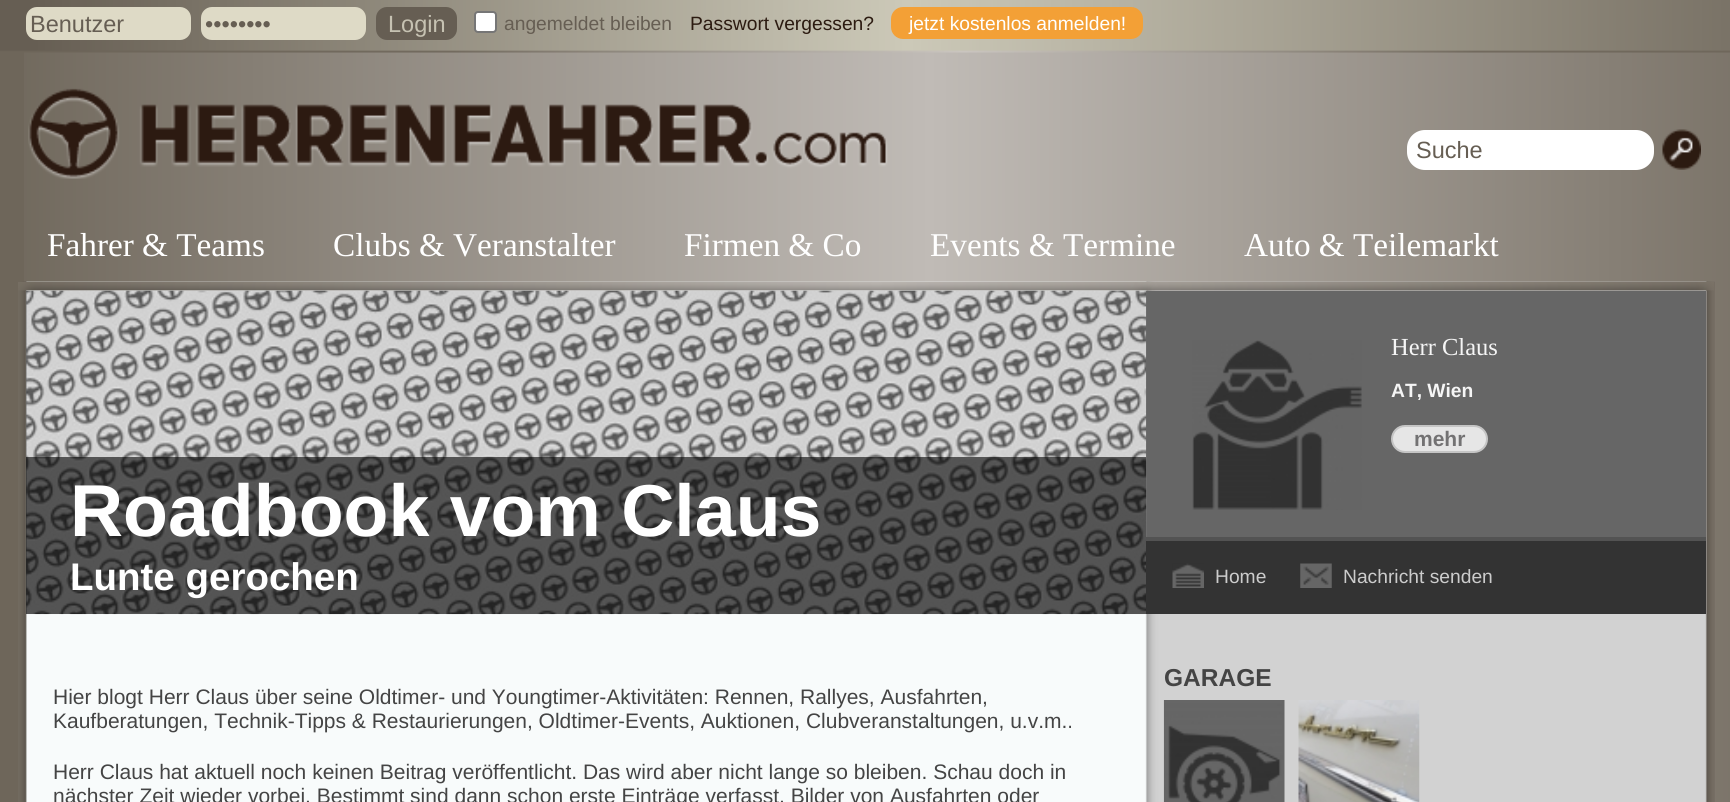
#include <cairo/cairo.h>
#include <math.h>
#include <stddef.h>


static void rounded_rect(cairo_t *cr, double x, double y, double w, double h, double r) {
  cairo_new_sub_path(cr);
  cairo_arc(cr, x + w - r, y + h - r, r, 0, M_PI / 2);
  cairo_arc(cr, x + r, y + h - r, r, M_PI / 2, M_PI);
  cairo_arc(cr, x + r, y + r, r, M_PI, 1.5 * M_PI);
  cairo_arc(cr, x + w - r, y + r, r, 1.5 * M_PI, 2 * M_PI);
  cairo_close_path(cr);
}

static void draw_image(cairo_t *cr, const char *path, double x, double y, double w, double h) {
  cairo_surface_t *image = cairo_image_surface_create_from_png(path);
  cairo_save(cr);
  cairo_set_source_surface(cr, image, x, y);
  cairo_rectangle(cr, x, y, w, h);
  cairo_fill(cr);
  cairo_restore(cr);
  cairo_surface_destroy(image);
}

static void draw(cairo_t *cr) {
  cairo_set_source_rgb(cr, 110 / 255.0, 102 / 255.0, 90 / 255.0);
  cairo_paint(cr);
  draw_image(cr, "images/1.png", 24, 52, 1706, 750);
  draw_image(cr, "images/2.png", 0, 0, 1730, 53);
  cairo_set_source_rgb(cr, 222 / 255.0, 218 / 255.0, 198 / 255.0);
  rounded_rect(cr, 26, 7, 165, 33, 11);
  cairo_fill(cr);
  rounded_rect(cr, 201, 7, 165, 33, 11);
  cairo_fill(cr);
  cairo_set_source_rgb(cr, 102 / 255.0, 94 / 255.0, 83 / 255.0);
  rounded_rect(cr, 376, 7, 81, 33, 11);
  cairo_fill(cr);
  cairo_set_source_rgb(cr, 1, 1, 1);
  rounded_rect(cr, 475, 12, 21, 20, 3);
  cairo_fill_preserve(cr);
  cairo_set_source_rgb(cr, 118 / 255.0, 118 / 255.0, 118 / 255.0);
  cairo_stroke(cr);
  cairo_set_source_rgb(cr, 243 / 255.0, 160 / 255.0, 54 / 255.0);
  rounded_rect(cr, 891, 7, 252, 32, 12);
  cairo_fill(cr);
  draw_image(cr, "images/3.png", 28, 88, 860, 91);
  cairo_set_source_rgb(cr, 1, 1, 1);
  rounded_rect(cr, 1407, 130, 247, 40, 18);
  cairo_fill(cr);
  draw_image(cr, "images/4.png", 1662, 129, 39, 41);
  draw_image(cr, "images/5.png", 18, 281, 1697, 521);
  draw_image(cr, "images/6.png", 18, 282, 1696, 9);
  cairo_set_source_rgb(cr, 102 / 255.0, 102 / 255.0, 102 / 255.0);
  cairo_rectangle(cr, 26, 291, 1680, 323);
  cairo_fill(cr);
  draw_image(cr, "images/7.png", 26, 290, 1121, 325);
  cairo_set_source_rgba(cr, 0, 0, 0, 0.6);
  cairo_rectangle(cr, 26, 457, 1120, 157);
  cairo_fill(cr);
  draw_image(cr, "images/8.png", 1192, 340, 170, 170);
  cairo_set_source_rgb(cr, 230 / 255.0, 230 / 255.0, 230 / 255.0);
  rounded_rect(cr, 1392, 426, 95, 26, 13);
  cairo_fill_preserve(cr);
  cairo_set_source_rgb(cr, 197 / 255.0, 197 / 255.0, 197 / 255.0);
  cairo_stroke(cr);
  cairo_set_source_rgb(cr, 51 / 255.0, 51 / 255.0, 51 / 255.0);
  cairo_rectangle(cr, 1146, 541, 560, 73);
  cairo_fill(cr);
  cairo_set_source_rgb(cr, 83 / 255.0, 83 / 255.0, 83 / 255.0);
  cairo_rectangle(cr, 1146, 537, 560, 4);
  cairo_fill(cr);
  draw_image(cr, "images/9.png", 1172, 563, 32, 25);
  draw_image(cr, "images/10.png", 1300, 563, 32, 25);
  draw_image(cr, "images/11.png", 1163, 700, 122, 102);
  draw_image(cr, "images/12.png", 1298, 700, 122, 102);
  cairo_select_font_face(cr, "Liberation Sans", CAIRO_FONT_SLANT_NORMAL, CAIRO_FONT_WEIGHT_NORMAL);
  cairo_set_font_size(cr, 23.5);
  cairo_set_source_rgb(cr, 102 / 255.0, 94 / 255.0, 83 / 255.0);
  cairo_move_to(cr, 30, 32);
  cairo_show_text(cr, "Benutzer");
  cairo_move_to(cr, 205, 32);
  cairo_show_text(cr, "••••••••");
  cairo_set_source_rgb(cr, 198 / 255.0, 194 / 255.0, 178 / 255.0);
  cairo_move_to(cr, 388, 32);
  cairo_show_text(cr, "Login");
  cairo_set_font_size(cr, 19.25);
  cairo_set_source_rgb(cr, 102 / 255.0, 94 / 255.0, 83 / 255.0);
  cairo_move_to(cr, 504, 30);
  cairo_show_text(cr, "angemeldet bleiben");
  cairo_set_source_rgb(cr, 44 / 255.0, 27 / 255.0, 17 / 255.0);
  cairo_move_to(cr, 690, 30);
  cairo_show_text(cr, "Passwort vergessen?");
  cairo_set_source_rgb(cr, 1, 1, 1);
  cairo_move_to(cr, 909, 30);
  cairo_show_text(cr, "jetzt kostenlos anmelden!");
  cairo_set_font_size(cr, 23.5);
  cairo_set_source_rgb(cr, 102 / 255.0, 94 / 255.0, 83 / 255.0);
  cairo_move_to(cr, 1416, 158);
  cairo_show_text(cr, "Suche");
  cairo_select_font_face(cr, "Liberation Serif", CAIRO_FONT_SLANT_NORMAL, CAIRO_FONT_WEIGHT_NORMAL);
  cairo_set_font_size(cr, 33.25);
  cairo_set_source_rgb(cr, 1, 1, 1);
  cairo_move_to(cr, 47, 256);
  cairo_show_text(cr, "Fahrer & Teams");
  cairo_move_to(cr, 333, 256);
  cairo_show_text(cr, "Clubs & Veranstalter");
  cairo_move_to(cr, 684, 256);
  cairo_show_text(cr, "Firmen & Co");
  cairo_move_to(cr, 930, 256);
  cairo_show_text(cr, "Events & Termine");
  cairo_move_to(cr, 1244, 256);
  cairo_show_text(cr, "Auto & Teilemarkt");
  cairo_select_font_face(cr, "Liberation Sans", CAIRO_FONT_SLANT_NORMAL, CAIRO_FONT_WEIGHT_BOLD);
  cairo_set_font_size(cr, 73.5);
  cairo_move_to(cr, 70, 536);
  cairo_show_text(cr, "Roadbook vom Claus");
  cairo_set_font_size(cr, 38.5);
  cairo_move_to(cr, 70, 590);
  cairo_show_text(cr, "Lunte gerochen");
  cairo_select_font_face(cr, "Liberation Serif", CAIRO_FONT_SLANT_NORMAL, CAIRO_FONT_WEIGHT_NORMAL);
  cairo_set_font_size(cr, 24.5);
  cairo_set_source_rgb(cr, 245 / 255.0, 245 / 255.0, 245 / 255.0);
  cairo_move_to(cr, 1391, 355);
  cairo_show_text(cr, "Herr Claus");
  cairo_select_font_face(cr, "Liberation Sans", CAIRO_FONT_SLANT_NORMAL, CAIRO_FONT_WEIGHT_BOLD);
  cairo_set_font_size(cr, 19.25);
  cairo_move_to(cr, 1391, 397);
  cairo_show_text(cr, "AT, Wien");
  cairo_set_font_size(cr, 21);
  cairo_set_source_rgb(cr, 115 / 255.0, 114 / 255.0, 115 / 255.0);
  cairo_move_to(cr, 1414, 446);
  cairo_show_text(cr, "mehr");
  cairo_select_font_face(cr, "Liberation Sans", CAIRO_FONT_SLANT_NORMAL, CAIRO_FONT_WEIGHT_NORMAL);
  cairo_set_font_size(cr, 19.25);
  cairo_set_source_rgb(cr, 204 / 255.0, 204 / 255.0, 204 / 255.0);
  cairo_move_to(cr, 1215, 583);
  cairo_show_text(cr, "Home");
  cairo_move_to(cr, 1343, 583);
  cairo_show_text(cr, "Nachricht senden");
  cairo_select_font_face(cr, "Liberation Sans", CAIRO_FONT_SLANT_NORMAL, CAIRO_FONT_WEIGHT_BOLD);
  cairo_set_font_size(cr, 24.5);
  cairo_set_source_rgb(cr, 68 / 255.0, 68 / 255.0, 68 / 255.0);
  cairo_move_to(cr, 1164, 686);
  cairo_show_text(cr, "GARAGE");
  cairo_select_font_face(cr, "Liberation Sans", CAIRO_FONT_SLANT_NORMAL, CAIRO_FONT_WEIGHT_NORMAL);
  cairo_set_font_size(cr, 21);
  cairo_move_to(cr, 53, 704);
  cairo_show_text(cr, "Hier blogt Herr Claus über seine Oldtimer- und Youngtimer-Aktivitäten: Rennen, Rallyes, Ausfahrten,");
  cairo_move_to(cr, 53, 728);
  cairo_show_text(cr, "Kaufberatungen, Technik-Tipps & Restaurierungen, Oldtimer-Events, Auktionen, Clubveranstaltungen, u.v.m..");
  cairo_move_to(cr, 53, 779);
  cairo_show_text(cr, "Herr Claus hat aktuell noch keinen Beitrag veröffentlicht. Das wird aber nicht lange so bleiben. Schau doch in");
  cairo_move_to(cr, 53, 803);
  cairo_show_text(cr, "nächster Zeit wieder vorbei. Bestimmt sind dann schon erste Einträge verfasst, Bilder von Ausfahrten oder");
}

int main(void) {
  cairo_surface_t *surface = cairo_image_surface_create(CAIRO_FORMAT_RGB24, 1730, 802);
  cairo_t *cr = cairo_create(surface);
  cairo_font_options_t *options = cairo_font_options_create();
  cairo_font_options_set_hint_metrics(options, CAIRO_HINT_METRICS_OFF);
  cairo_font_options_set_hint_style(options, CAIRO_HINT_STYLE_NONE);
  cairo_set_font_options(cr, options);
  cairo_set_miter_limit(cr, 4);
  draw(cr);
  cairo_surface_write_to_png(surface, "out.png");
  cairo_font_options_destroy(options);
  cairo_destroy(cr);
  cairo_surface_destroy(surface);
  return 0;
}
